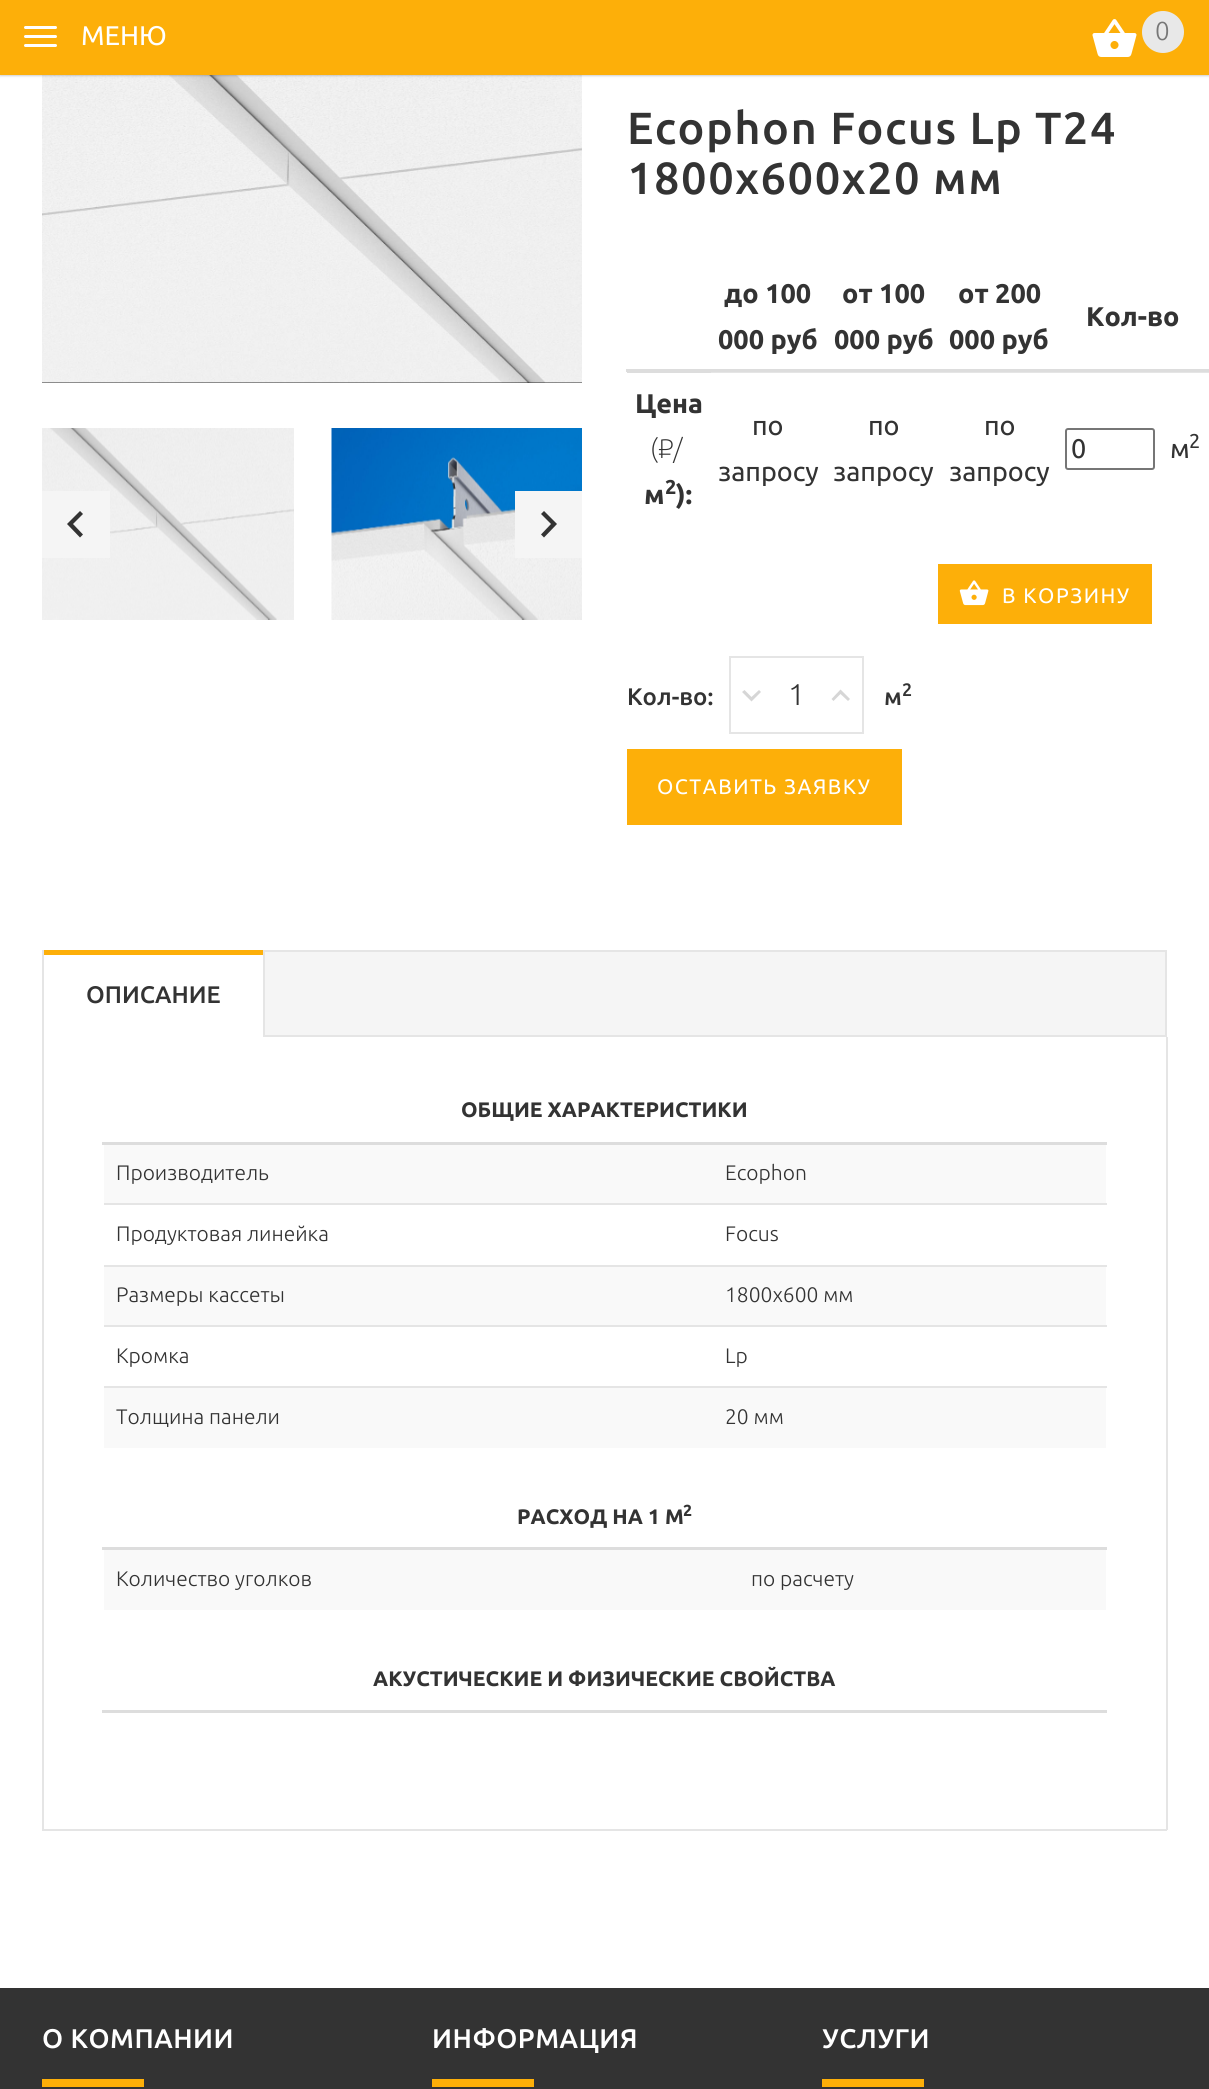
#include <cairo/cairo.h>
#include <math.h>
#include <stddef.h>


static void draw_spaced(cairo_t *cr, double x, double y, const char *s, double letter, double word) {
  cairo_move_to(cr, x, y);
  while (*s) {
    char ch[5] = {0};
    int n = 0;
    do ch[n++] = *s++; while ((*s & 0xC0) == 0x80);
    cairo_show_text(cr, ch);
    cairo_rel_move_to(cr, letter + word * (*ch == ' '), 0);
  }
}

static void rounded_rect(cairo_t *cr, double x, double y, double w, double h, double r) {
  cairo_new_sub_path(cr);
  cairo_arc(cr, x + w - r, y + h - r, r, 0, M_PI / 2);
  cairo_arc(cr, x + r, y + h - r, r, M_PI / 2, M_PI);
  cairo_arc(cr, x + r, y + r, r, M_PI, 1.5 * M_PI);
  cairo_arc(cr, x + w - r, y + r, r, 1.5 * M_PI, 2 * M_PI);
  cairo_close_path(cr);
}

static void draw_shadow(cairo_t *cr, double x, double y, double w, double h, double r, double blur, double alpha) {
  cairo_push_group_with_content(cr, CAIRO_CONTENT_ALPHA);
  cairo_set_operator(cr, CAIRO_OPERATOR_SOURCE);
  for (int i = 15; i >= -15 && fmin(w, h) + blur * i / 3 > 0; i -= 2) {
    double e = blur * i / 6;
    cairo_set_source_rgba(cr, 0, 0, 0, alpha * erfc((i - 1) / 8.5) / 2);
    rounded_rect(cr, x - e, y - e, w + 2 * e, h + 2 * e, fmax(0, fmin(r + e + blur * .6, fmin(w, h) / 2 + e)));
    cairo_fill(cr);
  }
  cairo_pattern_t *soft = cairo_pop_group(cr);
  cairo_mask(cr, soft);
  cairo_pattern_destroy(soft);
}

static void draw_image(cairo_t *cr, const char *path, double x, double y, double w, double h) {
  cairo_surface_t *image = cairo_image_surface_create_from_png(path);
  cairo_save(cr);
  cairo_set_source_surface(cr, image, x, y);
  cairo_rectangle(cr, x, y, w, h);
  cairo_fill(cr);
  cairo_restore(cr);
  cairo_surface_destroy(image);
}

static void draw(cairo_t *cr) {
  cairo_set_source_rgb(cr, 1, 1, 1);
  cairo_paint(cr);
  cairo_set_source_rgb(cr, 41 / 255.0, 41 / 255.0, 41 / 255.0);
  cairo_rectangle(cr, 42, 382, 540, 1);
  cairo_fill(cr);
  draw_image(cr, "images/2.png", 42, 75, 540, 308);
  cairo_set_source_rgb(cr, 0, 0, 0);
  draw_shadow(cr, 0, 2, 1209, 73, 0, 1.5, 0.24);
  draw_shadow(cr, 0, 2, 1209, 73, 0, 2, 0.12);
  cairo_set_source_rgb(cr, 253 / 255.0, 175 / 255.0, 9 / 255.0);
  cairo_rectangle(cr, 0, 0, 1209, 75);
  cairo_fill(cr);
  cairo_set_source_rgb(cr, 1, 1, 1);
  rounded_rect(cr, 24, 26, 33, 3, 1.5);
  cairo_fill(cr);
  rounded_rect(cr, 24, 35, 33, 3, 1.5);
  cairo_fill(cr);
  rounded_rect(cr, 24, 44, 33, 3, 1.5);
  cairo_fill(cr);
  draw_image(cr, "images/1.png", 1092, 19, 45, 38);
  cairo_set_source_rgb(cr, 232 / 255.0, 232 / 255.0, 232 / 255.0);
  cairo_arc(cr, 1163, 32, 21, 0, 2 * M_PI);
  cairo_fill(cr);
  draw_image(cr, "images/3.png", 42, 428, 252, 192);
  draw_image(cr, "images/4.png", 331, 428, 251, 192);
  cairo_set_source_rgb(cr, 245 / 255.0, 245 / 255.0, 245 / 255.0);
  cairo_rectangle(cr, 42, 491, 68, 67);
  cairo_fill(cr);
  cairo_set_source_rgb(cr, 51 / 255.0, 51 / 255.0, 51 / 255.0);
  cairo_new_path(cr);
  cairo_move_to(cr, 83, 514);
  cairo_line_to(cr, 73, 524);
  cairo_line_to(cr, 83, 534.5);
  cairo_line_to(cr, 80, 537.5);
  cairo_line_to(cr, 67, 524);
  cairo_line_to(cr, 80, 511);
  cairo_close_path(cr);
  cairo_fill(cr);
  cairo_set_source_rgb(cr, 245 / 255.0, 245 / 255.0, 245 / 255.0);
  cairo_rectangle(cr, 515, 491, 67, 67);
  cairo_fill(cr);
  cairo_set_source_rgb(cr, 51 / 255.0, 51 / 255.0, 51 / 255.0);
  cairo_new_path(cr);
  cairo_move_to(cr, 544, 511);
  cairo_line_to(cr, 557, 524);
  cairo_line_to(cr, 544, 537.5);
  cairo_line_to(cr, 541, 534.5);
  cairo_line_to(cr, 551, 524);
  cairo_line_to(cr, 541, 514);
  cairo_close_path(cr);
  cairo_fill(cr);
  cairo_set_source_rgb(cr, 221 / 255.0, 221 / 255.0, 221 / 255.0);
  cairo_rectangle(cr, 626, 369, 583, 3);
  cairo_fill(cr);
  cairo_set_source_rgb(cr, 229 / 255.0, 229 / 255.0, 229 / 255.0);
  cairo_rectangle(cr, 710, 372, 499, 1);
  cairo_fill(cr);
  cairo_set_source_rgb(cr, 221 / 255.0, 221 / 255.0, 221 / 255.0);
  cairo_rectangle(cr, 627, 372, 84, 1);
  cairo_fill(cr);
  rounded_rect(cr, 1066, 429, 88, 40, 2);
  cairo_set_source_rgb(cr, 118 / 255.0, 118 / 255.0, 118 / 255.0);
  cairo_stroke(cr);
  cairo_set_source_rgb(cr, 253 / 255.0, 175 / 255.0, 9 / 255.0);
  cairo_rectangle(cr, 938, 564, 214, 60);
  cairo_fill(cr);
  draw_image(cr, "images/5.png", 959, 580, 30, 26);
  cairo_rectangle(cr, 730, 657, 133, 76);
  cairo_set_source_rgb(cr, 229 / 255.0, 229 / 255.0, 229 / 255.0);
  cairo_stroke(cr);
  cairo_set_source_rgb(cr, 214 / 255.0, 214 / 255.0, 214 / 255.0);
  cairo_new_path(cr);
  cairo_move_to(cr, 744.5, 690);
  cairo_line_to(cr, 751.5, 697);
  cairo_line_to(cr, 759, 690);
  cairo_line_to(cr, 761, 692);
  cairo_line_to(cr, 751.5, 701.5);
  cairo_line_to(cr, 742, 692);
  cairo_close_path(cr);
  cairo_fill(cr);
  cairo_new_path(cr);
  cairo_move_to(cr, 848, 701);
  cairo_line_to(cr, 840.5, 694);
  cairo_line_to(cr, 833.5, 701);
  cairo_line_to(cr, 831.5, 699);
  cairo_line_to(cr, 840.5, 689.5);
  cairo_line_to(cr, 850, 699);
  cairo_close_path(cr);
  cairo_fill(cr);
  cairo_set_source_rgb(cr, 253 / 255.0, 175 / 255.0, 9 / 255.0);
  cairo_rectangle(cr, 627, 749, 275, 76);
  cairo_fill(cr);
  cairo_set_source_rgb(cr, 245 / 255.0, 245 / 255.0, 245 / 255.0);
  cairo_rectangle(cr, 265, 952, 900, 83);
  cairo_fill(cr);
  cairo_rectangle(cr, 43, 951, 1123, 85);
  cairo_set_source_rgb(cr, 229 / 255.0, 229 / 255.0, 229 / 255.0);
  cairo_stroke(cr);
  cairo_set_source_rgb(cr, 1, 1, 1);
  cairo_rectangle(cr, 44, 1035, 219, 2);
  cairo_fill(cr);
  cairo_set_source_rgb(cr, 229 / 255.0, 229 / 255.0, 229 / 255.0);
  cairo_rectangle(cr, 263, 951, 2, 86);
  cairo_fill(cr);
  cairo_set_source_rgb(cr, 253 / 255.0, 175 / 255.0, 9 / 255.0);
  cairo_rectangle(cr, 44, 950, 219, 5);
  cairo_fill(cr);
  cairo_set_source_rgb(cr, 229 / 255.0, 229 / 255.0, 229 / 255.0);
  cairo_rectangle(cr, 1166, 1037, 2, 793);
  cairo_fill(cr);
  cairo_rectangle(cr, 42, 1829, 1125, 2);
  cairo_fill(cr);
  cairo_rectangle(cr, 42, 1037, 2, 793);
  cairo_fill(cr);
  cairo_set_source_rgb(cr, 221 / 255.0, 221 / 255.0, 221 / 255.0);
  cairo_rectangle(cr, 102, 1142, 1005, 3);
  cairo_fill(cr);
  cairo_set_source_rgb(cr, 249 / 255.0, 249 / 255.0, 249 / 255.0);
  cairo_rectangle(cr, 104, 1145, 1002, 58);
  cairo_fill(cr);
  cairo_set_source_rgb(cr, 229 / 255.0, 229 / 255.0, 229 / 255.0);
  cairo_rectangle(cr, 104, 1203, 1003, 2);
  cairo_fill(cr);
  cairo_set_source_rgb(cr, 249 / 255.0, 249 / 255.0, 249 / 255.0);
  cairo_rectangle(cr, 104, 1267, 1002, 58);
  cairo_fill(cr);
  cairo_set_source_rgb(cr, 229 / 255.0, 229 / 255.0, 229 / 255.0);
  cairo_rectangle(cr, 104, 1265, 1003, 2);
  cairo_fill(cr);
  cairo_rectangle(cr, 104, 1325, 1003, 2);
  cairo_fill(cr);
  cairo_set_source_rgb(cr, 249 / 255.0, 249 / 255.0, 249 / 255.0);
  cairo_rectangle(cr, 104, 1388, 1002, 60);
  cairo_fill(cr);
  cairo_set_source_rgb(cr, 229 / 255.0, 229 / 255.0, 229 / 255.0);
  cairo_rectangle(cr, 104, 1386, 1003, 2);
  cairo_fill(cr);
  cairo_set_source_rgb(cr, 221 / 255.0, 221 / 255.0, 221 / 255.0);
  cairo_rectangle(cr, 102, 1547, 1005, 3);
  cairo_fill(cr);
  cairo_set_source_rgb(cr, 249 / 255.0, 249 / 255.0, 249 / 255.0);
  cairo_rectangle(cr, 104, 1550, 1002, 60);
  cairo_fill(cr);
  cairo_set_source_rgb(cr, 221 / 255.0, 221 / 255.0, 221 / 255.0);
  cairo_rectangle(cr, 102, 1710, 1005, 3);
  cairo_fill(cr);
  cairo_set_source_rgb(cr, 51 / 255.0, 51 / 255.0, 51 / 255.0);
  cairo_rectangle(cr, 0, 1988, 1209, 101);
  cairo_fill(cr);
  cairo_set_source_rgb(cr, 253 / 255.0, 175 / 255.0, 9 / 255.0);
  cairo_rectangle(cr, 42, 2079, 102, 8);
  cairo_fill(cr);
  cairo_rectangle(cr, 432, 2079, 102, 8);
  cairo_fill(cr);
  cairo_rectangle(cr, 822, 2079, 102, 8);
  cairo_fill(cr);
  cairo_select_font_face(cr, "Ubuntu", CAIRO_FONT_SLANT_NORMAL, CAIRO_FONT_WEIGHT_NORMAL);
  cairo_set_font_size(cr, 27);
  cairo_set_source_rgb(cr, 1, 1, 1);
  cairo_move_to(cr, 81, 45);
  cairo_show_text(cr, "МЕНЮ");
  cairo_select_font_face(cr, "Ubuntu Light", CAIRO_FONT_SLANT_NORMAL, CAIRO_FONT_WEIGHT_NORMAL);
  cairo_set_font_size(cr, 26);
  cairo_set_source_rgb(cr, 119 / 255.0, 119 / 255.0, 119 / 255.0);
  cairo_move_to(cr, 1155, 40);
  cairo_show_text(cr, "0");
  cairo_select_font_face(cr, "Ubuntu Medium", CAIRO_FONT_SLANT_NORMAL, CAIRO_FONT_WEIGHT_NORMAL);
  cairo_set_font_size(cr, 45);
  cairo_set_source_rgb(cr, 51 / 255.0, 51 / 255.0, 51 / 255.0);
  draw_spaced(cr, 627, 144, "Ecophon Focus Lp T24", 1.5, 0);
  draw_spaced(cr, 627, 194, "1800x600x20 мм", 1.5, 0);
  cairo_select_font_face(cr, "Ubuntu", CAIRO_FONT_SLANT_NORMAL, CAIRO_FONT_WEIGHT_BOLD);
  cairo_set_font_size(cr, 27);
  cairo_move_to(cr, 724, 303);
  cairo_show_text(cr, "до 100");
  cairo_move_to(cr, 718, 349);
  cairo_show_text(cr, "000 руб");
  cairo_move_to(cr, 842, 303);
  cairo_show_text(cr, "от 100");
  cairo_move_to(cr, 834, 349);
  cairo_show_text(cr, "000 руб");
  cairo_move_to(cr, 958, 303);
  cairo_show_text(cr, "от 200");
  cairo_move_to(cr, 949, 349);
  cairo_show_text(cr, "000 руб");
  cairo_move_to(cr, 1086, 326);
  cairo_show_text(cr, "Кол-во");
  cairo_move_to(cr, 635, 413);
  cairo_show_text(cr, "Цена");
  cairo_select_font_face(cr, "Ubuntu ExtraLight", CAIRO_FONT_SLANT_NORMAL, CAIRO_FONT_WEIGHT_NORMAL);
  cairo_move_to(cr, 650, 458);
  cairo_show_text(cr, "(₽/");
  cairo_select_font_face(cr, "Ubuntu", CAIRO_FONT_SLANT_NORMAL, CAIRO_FONT_WEIGHT_BOLD);
  cairo_move_to(cr, 644, 504);
  cairo_show_text(cr, "м");
  cairo_set_font_size(cr, 20);
  cairo_move_to(cr, 665, 494);
  cairo_show_text(cr, "2");
  cairo_set_font_size(cr, 27);
  cairo_move_to(cr, 676, 504);
  cairo_show_text(cr, "):");
  cairo_select_font_face(cr, "Ubuntu", CAIRO_FONT_SLANT_NORMAL, CAIRO_FONT_WEIGHT_NORMAL);
  cairo_move_to(cr, 752, 435);
  cairo_show_text(cr, "по");
  cairo_move_to(cr, 718, 481);
  cairo_show_text(cr, "запросу");
  cairo_move_to(cr, 868, 435);
  cairo_show_text(cr, "по");
  cairo_move_to(cr, 833, 481);
  cairo_show_text(cr, "запросу");
  cairo_move_to(cr, 984, 435);
  cairo_show_text(cr, "по");
  cairo_move_to(cr, 949, 481);
  cairo_show_text(cr, "запросу");
  cairo_move_to(cr, 1071, 458);
  cairo_show_text(cr, "0");
  cairo_set_font_size(cr, 20);
  cairo_move_to(cr, 1189, 448);
  cairo_show_text(cr, "2");
  cairo_set_font_size(cr, 27);
  cairo_move_to(cr, 1170, 458);
  cairo_show_text(cr, "м");
  cairo_set_font_size(cr, 21);
  cairo_set_source_rgb(cr, 1, 1, 1);
  draw_spaced(cr, 1002, 603, "В КОРЗИНУ", 1.5, 0);
  cairo_select_font_face(cr, "Ubuntu Medium", CAIRO_FONT_SLANT_NORMAL, CAIRO_FONT_WEIGHT_NORMAL);
  cairo_set_font_size(cr, 24);
  cairo_set_source_rgb(cr, 51 / 255.0, 51 / 255.0, 51 / 255.0);
  cairo_move_to(cr, 627, 705);
  cairo_show_text(cr, "Кол-во:");
  cairo_select_font_face(cr, "Ubuntu Light", CAIRO_FONT_SLANT_NORMAL, CAIRO_FONT_WEIGHT_NORMAL);
  cairo_set_font_size(cr, 30);
  cairo_move_to(cr, 788, 705);
  cairo_show_text(cr, "1");
  cairo_select_font_face(cr, "Ubuntu Medium", CAIRO_FONT_SLANT_NORMAL, CAIRO_FONT_WEIGHT_NORMAL);
  cairo_set_font_size(cr, 24);
  cairo_move_to(cr, 884, 705);
  cairo_show_text(cr, "м");
  cairo_set_font_size(cr, 18);
  cairo_move_to(cr, 902, 696);
  cairo_show_text(cr, "2");
  cairo_select_font_face(cr, "Ubuntu", CAIRO_FONT_SLANT_NORMAL, CAIRO_FONT_WEIGHT_NORMAL);
  cairo_set_font_size(cr, 21);
  cairo_set_source_rgb(cr, 1, 1, 1);
  draw_spaced(cr, 657, 794, "ОСТАВИТЬ ЗАЯВКУ", 1.5, 0);
  cairo_select_font_face(cr, "Ubuntu Medium", CAIRO_FONT_SLANT_NORMAL, CAIRO_FONT_WEIGHT_NORMAL);
  cairo_set_font_size(cr, 24);
  cairo_set_source_rgb(cr, 51 / 255.0, 51 / 255.0, 51 / 255.0);
  cairo_move_to(cr, 86, 1003);
  cairo_show_text(cr, "ОПИСАНИЕ");
  cairo_select_font_face(cr, "Ubuntu", CAIRO_FONT_SLANT_NORMAL, CAIRO_FONT_WEIGHT_BOLD);
  cairo_set_font_size(cr, 21);
  cairo_move_to(cr, 461, 1117);
  cairo_show_text(cr, "ОБЩИЕ ХАРАКТЕРИСТИКИ");
  cairo_select_font_face(cr, "Ubuntu Light", CAIRO_FONT_SLANT_NORMAL, CAIRO_FONT_WEIGHT_NORMAL);
  cairo_move_to(cr, 116, 1180);
  cairo_show_text(cr, "Производитель");
  cairo_move_to(cr, 725, 1180);
  cairo_show_text(cr, "Ecophon");
  cairo_move_to(cr, 116, 1241);
  cairo_show_text(cr, "Продуктовая линейка");
  cairo_move_to(cr, 725, 1241);
  cairo_show_text(cr, "Focus");
  cairo_move_to(cr, 116, 1302);
  cairo_show_text(cr, "Размеры кассеты");
  cairo_move_to(cr, 725, 1302);
  cairo_show_text(cr, "1800x600 мм");
  cairo_move_to(cr, 116, 1363);
  cairo_show_text(cr, "Кромка");
  cairo_move_to(cr, 725, 1363);
  cairo_show_text(cr, "Lp");
  cairo_move_to(cr, 116, 1424);
  cairo_show_text(cr, "Толщина панели");
  cairo_move_to(cr, 725, 1424);
  cairo_show_text(cr, "20 мм");
  cairo_select_font_face(cr, "Ubuntu", CAIRO_FONT_SLANT_NORMAL, CAIRO_FONT_WEIGHT_BOLD);
  cairo_move_to(cr, 517, 1524);
  cairo_show_text(cr, "РАСХОД НА 1 М");
  cairo_set_font_size(cr, 16);
  cairo_move_to(cr, 683, 1516);
  cairo_show_text(cr, "2");
  cairo_select_font_face(cr, "Ubuntu Light", CAIRO_FONT_SLANT_NORMAL, CAIRO_FONT_WEIGHT_NORMAL);
  cairo_set_font_size(cr, 21);
  cairo_move_to(cr, 116, 1586);
  cairo_show_text(cr, "Количество уголков");
  cairo_move_to(cr, 751, 1586);
  cairo_show_text(cr, "по расчету");
  cairo_select_font_face(cr, "Ubuntu", CAIRO_FONT_SLANT_NORMAL, CAIRO_FONT_WEIGHT_BOLD);
  cairo_move_to(cr, 373, 1686);
  cairo_show_text(cr, "АКУСТИЧЕСКИЕ И ФИЗИЧЕСКИЕ СВОЙСТВА");
  cairo_select_font_face(cr, "Ubuntu Medium", CAIRO_FONT_SLANT_NORMAL, CAIRO_FONT_WEIGHT_NORMAL);
  cairo_set_font_size(cr, 27);
  cairo_set_source_rgb(cr, 1, 1, 1);
  draw_spaced(cr, 42, 2048, "О КОМПАНИИ", 0.5, 0);
  draw_spaced(cr, 432, 2048, "ИНФОРМАЦИЯ", 0.5, 0);
  draw_spaced(cr, 822, 2048, "УСЛУГИ", 0.5, 0);
}

int main(void) {
  cairo_surface_t *surface = cairo_image_surface_create(CAIRO_FORMAT_RGB24, 1209, 2089);
  cairo_t *cr = cairo_create(surface);
  cairo_font_options_t *options = cairo_font_options_create();
  cairo_font_options_set_hint_metrics(options, CAIRO_HINT_METRICS_OFF);
  cairo_font_options_set_hint_style(options, CAIRO_HINT_STYLE_NONE);
  cairo_set_font_options(cr, options);
  cairo_set_miter_limit(cr, 4);
  draw(cr);
  cairo_surface_write_to_png(surface, "out.png");
  cairo_font_options_destroy(options);
  cairo_destroy(cr);
  cairo_surface_destroy(surface);
  return 0;
}
